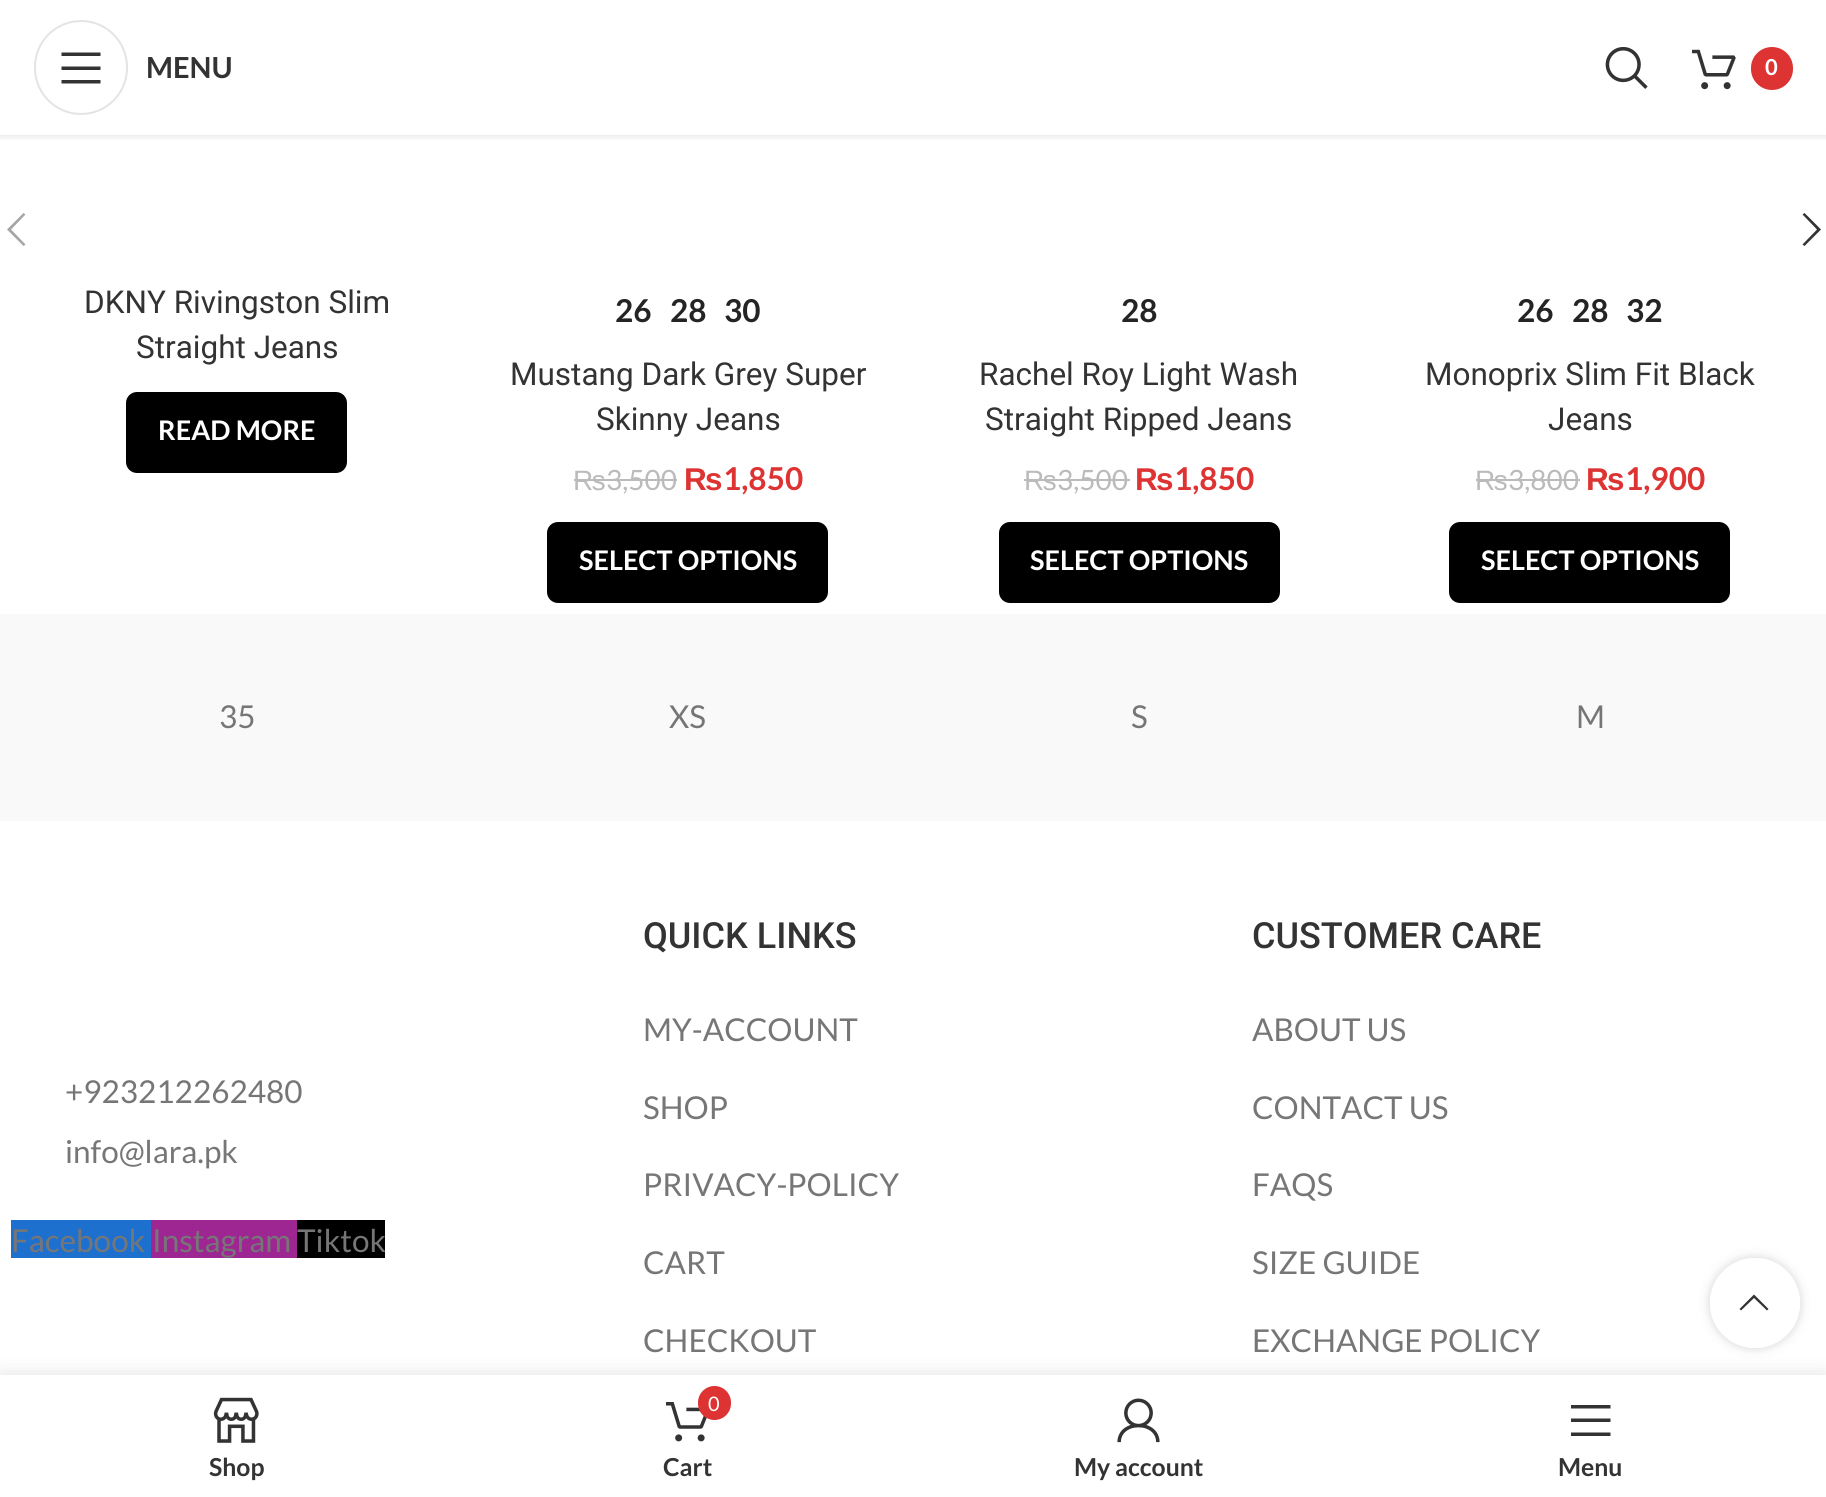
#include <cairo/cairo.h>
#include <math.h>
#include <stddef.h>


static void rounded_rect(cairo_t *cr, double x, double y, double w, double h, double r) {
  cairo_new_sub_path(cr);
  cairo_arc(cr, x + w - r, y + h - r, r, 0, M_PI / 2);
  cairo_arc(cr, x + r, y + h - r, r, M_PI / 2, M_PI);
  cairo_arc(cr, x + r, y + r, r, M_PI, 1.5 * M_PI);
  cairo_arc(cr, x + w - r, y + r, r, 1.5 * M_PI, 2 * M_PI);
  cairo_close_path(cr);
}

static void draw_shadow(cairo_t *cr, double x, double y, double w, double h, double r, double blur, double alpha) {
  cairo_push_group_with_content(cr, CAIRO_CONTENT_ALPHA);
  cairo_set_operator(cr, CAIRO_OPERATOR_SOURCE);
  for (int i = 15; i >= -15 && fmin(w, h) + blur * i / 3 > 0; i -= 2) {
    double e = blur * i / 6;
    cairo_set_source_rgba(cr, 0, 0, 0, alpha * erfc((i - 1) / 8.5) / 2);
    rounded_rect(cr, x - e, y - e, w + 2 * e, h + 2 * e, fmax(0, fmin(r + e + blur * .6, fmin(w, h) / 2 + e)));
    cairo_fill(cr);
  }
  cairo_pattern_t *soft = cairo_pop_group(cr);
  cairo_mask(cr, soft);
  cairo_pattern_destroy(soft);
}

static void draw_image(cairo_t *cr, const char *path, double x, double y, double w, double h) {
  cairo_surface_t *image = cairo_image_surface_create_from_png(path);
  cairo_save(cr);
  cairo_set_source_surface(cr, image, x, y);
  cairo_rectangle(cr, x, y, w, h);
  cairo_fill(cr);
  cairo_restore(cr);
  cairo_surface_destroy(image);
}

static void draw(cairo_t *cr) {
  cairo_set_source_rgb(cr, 1, 1, 1);
  cairo_paint(cr);
  cairo_save(cr);
  cairo_rectangle(cr, 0, 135, 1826, 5);
  cairo_clip(cr);
  cairo_set_source_rgb(cr, 0, 0, 0);
  draw_shadow(cr, 0, 2, 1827, 135, 0, 3.5, 0.1);
  cairo_restore(cr);
  rounded_rect(cr, 35, 21, 92, 93, 46);
  cairo_set_source_rgb(cr, 228 / 255.0, 228 / 255.0, 228 / 255.0);
  cairo_stroke(cr);
  cairo_set_source_rgb(cr, 51 / 255.0, 51 / 255.0, 51 / 255.0);
  cairo_new_path(cr);
  cairo_move_to(cr, 61.5, 56);
  cairo_line_to(cr, 100.5, 56);
  cairo_line_to(cr, 100.5, 52.5);
  cairo_line_to(cr, 61.5, 52.5);
  cairo_close_path(cr);
  cairo_move_to(cr, 61.5, 70);
  cairo_line_to(cr, 100.5, 70);
  cairo_line_to(cr, 100.5, 66.5);
  cairo_line_to(cr, 61.5, 66.5);
  cairo_close_path(cr);
  cairo_move_to(cr, 61.5, 83.5);
  cairo_line_to(cr, 100.5, 83.5);
  cairo_line_to(cr, 100.5, 80);
  cairo_line_to(cr, 61.5, 80);
  cairo_close_path(cr);
  cairo_fill(cr);
  draw_image(cr, "images/1.png", 1605, 47, 43, 42);
  draw_image(cr, "images/2.png", 1692, 49, 44, 41);
  cairo_set_source_rgb(cr, 221 / 255.0, 51 / 255.0, 51 / 255.0);
  rounded_rect(cr, 1751, 47, 42, 43, 21);
  cairo_fill(cr);
  cairo_set_source_rgb(cr, 165 / 255.0, 165 / 255.0, 165 / 255.0);
  cairo_new_path(cr);
  cairo_move_to(cr, 25.5, 214.5);
  cairo_line_to(cr, 23.5, 213);
  cairo_line_to(cr, 7, 229.5);
  cairo_line_to(cr, 23.5, 246);
  cairo_line_to(cr, 25.5, 244.5);
  cairo_line_to(cr, 11, 229.5);
  cairo_close_path(cr);
  cairo_fill(cr);
  cairo_set_source_rgb(cr, 51 / 255.0, 51 / 255.0, 51 / 255.0);
  cairo_new_path(cr);
  cairo_move_to(cr, 1802.5, 214.5);
  cairo_line_to(cr, 1817, 229.5);
  cairo_line_to(cr, 1802.5, 244.5);
  cairo_line_to(cr, 1804.5, 246);
  cairo_line_to(cr, 1821, 229.5);
  cairo_line_to(cr, 1804.5, 213);
  cairo_close_path(cr);
  cairo_fill(cr);
  cairo_set_source_rgb(cr, 0, 0, 0);
  rounded_rect(cr, 126, 392, 221, 81, 11);
  cairo_fill(cr);
  cairo_set_source_rgb(cr, 187 / 255.0, 187 / 255.0, 187 / 255.0);
  cairo_rectangle(cr, 574, 479, 31, 2);
  cairo_fill(cr);
  cairo_rectangle(cr, 605, 479, 72, 2);
  cairo_fill(cr);
  cairo_set_source_rgb(cr, 0, 0, 0);
  rounded_rect(cr, 547, 522, 281, 81, 11);
  cairo_fill(cr);
  cairo_set_source_rgb(cr, 187 / 255.0, 187 / 255.0, 187 / 255.0);
  cairo_rectangle(cr, 1024, 479, 34, 2);
  cairo_fill(cr);
  cairo_rectangle(cr, 1058, 479, 72, 2);
  cairo_fill(cr);
  cairo_set_source_rgb(cr, 0, 0, 0);
  rounded_rect(cr, 999, 522, 281, 81, 11);
  cairo_fill(cr);
  cairo_set_source_rgb(cr, 187 / 255.0, 187 / 255.0, 187 / 255.0);
  cairo_rectangle(cr, 1476, 479, 32, 2);
  cairo_fill(cr);
  cairo_rectangle(cr, 1508, 479, 72, 2);
  cairo_fill(cr);
  cairo_set_source_rgb(cr, 0, 0, 0);
  rounded_rect(cr, 1449, 522, 281, 81, 11);
  cairo_fill(cr);
  cairo_set_source_rgb(cr, 249 / 255.0, 249 / 255.0, 249 / 255.0);
  cairo_rectangle(cr, 0, 614, 1826, 207);
  cairo_fill(cr);
  cairo_set_source_rgb(cr, 30 / 255.0, 112 / 255.0, 206 / 255.0);
  cairo_rectangle(cr, 11, 1220, 140, 38);
  cairo_fill(cr);
  cairo_set_source_rgb(cr, 157 / 255.0, 38 / 255.0, 146 / 255.0);
  cairo_rectangle(cr, 151, 1220, 146, 38);
  cairo_fill(cr);
  cairo_set_source_rgb(cr, 0, 0, 0);
  cairo_rectangle(cr, 297, 1220, 88, 38);
  cairo_fill(cr);
  cairo_save(cr);
  cairo_set_fill_rule(cr, CAIRO_FILL_RULE_EVEN_ODD);
  cairo_new_path(cr);
  cairo_move_to(cr, 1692, 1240);
  cairo_line_to(cr, 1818, 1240);
  cairo_line_to(cr, 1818, 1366);
  cairo_line_to(cr, 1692, 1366);
  cairo_close_path(cr);
  cairo_move_to(cr, 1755, 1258);
  cairo_curve_to(cr, 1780, 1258, 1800, 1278, 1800, 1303);
  cairo_curve_to(cr, 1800, 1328, 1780, 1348, 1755, 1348);
  cairo_curve_to(cr, 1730, 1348, 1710, 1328, 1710, 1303);
  cairo_curve_to(cr, 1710, 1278, 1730, 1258, 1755, 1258);
  cairo_close_path(cr);
  cairo_clip(cr);
  cairo_set_source_rgb(cr, 0, 0, 0);
  draw_shadow(cr, 1710, 1258, 90, 90, 45, 5.5, 0.17);
  cairo_restore(cr);
  cairo_set_source_rgba(cr, 1, 1, 1, 0.9);
  cairo_arc(cr, 1755, 1303, 45, 0, 2 * M_PI);
  cairo_fill(cr);
  cairo_set_source_rgb(cr, 51 / 255.0, 51 / 255.0, 51 / 255.0);
  cairo_new_path(cr);
  cairo_move_to(cr, 1767, 1310.5);
  cairo_line_to(cr, 1768.5, 1309);
  cairo_line_to(cr, 1754, 1294.5);
  cairo_line_to(cr, 1739.5, 1309);
  cairo_line_to(cr, 1741, 1310.5);
  cairo_line_to(cr, 1754, 1298);
  cairo_close_path(cr);
  cairo_fill(cr);
  cairo_set_source_rgb(cr, 0, 0, 0);
  draw_shadow(cr, 0, 1375, 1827, 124, 0, 10, 0.12);
  cairo_set_source_rgb(cr, 1, 1, 1);
  cairo_rectangle(cr, 0, 1375, 1826, 122);
  cairo_fill(cr);
  draw_image(cr, "images/3.png", 213, 1397, 46, 46);
  draw_image(cr, "images/4.png", 666, 1402, 41, 40);
  cairo_set_source_rgb(cr, 221 / 255.0, 51 / 255.0, 51 / 255.0);
  rounded_rect(cr, 698, 1386, 33, 34, 16.5);
  cairo_fill(cr);
  draw_image(cr, "images/5.png", 1117, 1398, 43, 45);
  cairo_set_source_rgb(cr, 51 / 255.0, 51 / 255.0, 51 / 255.0);
  cairo_new_path(cr);
  cairo_move_to(cr, 1571, 1408.5);
  cairo_line_to(cr, 1610.5, 1408.5);
  cairo_line_to(cr, 1610.5, 1405);
  cairo_line_to(cr, 1571, 1405);
  cairo_close_path(cr);
  cairo_move_to(cr, 1571, 1422);
  cairo_line_to(cr, 1610.5, 1422);
  cairo_line_to(cr, 1610.5, 1418.5);
  cairo_line_to(cr, 1571, 1418.5);
  cairo_close_path(cr);
  cairo_move_to(cr, 1571, 1436);
  cairo_line_to(cr, 1610.5, 1436);
  cairo_line_to(cr, 1610.5, 1432.5);
  cairo_line_to(cr, 1571, 1432.5);
  cairo_close_path(cr);
  cairo_fill(cr);
  cairo_select_font_face(cr, "Lato", CAIRO_FONT_SLANT_NORMAL, CAIRO_FONT_WEIGHT_BOLD);
  cairo_set_font_size(cr, 29);
  cairo_move_to(cr, 146, 78);
  cairo_show_text(cr, "MENU");
  cairo_set_font_size(cr, 22);
  cairo_set_source_rgb(cr, 1, 1, 1);
  cairo_move_to(cr, 1765, 75);
  cairo_show_text(cr, "0");
  cairo_select_font_face(cr, "Roboto", CAIRO_FONT_SLANT_NORMAL, CAIRO_FONT_WEIGHT_NORMAL);
  cairo_set_font_size(cr, 31.5);
  cairo_set_source_rgb(cr, 51 / 255.0, 51 / 255.0, 51 / 255.0);
  cairo_move_to(cr, 84, 313);
  cairo_show_text(cr, "DKNY Rivingston Slim");
  cairo_move_to(cr, 136, 358);
  cairo_show_text(cr, "Straight Jeans");
  cairo_select_font_face(cr, "Lato", CAIRO_FONT_SLANT_NORMAL, CAIRO_FONT_WEIGHT_BOLD);
  cairo_set_font_size(cr, 27);
  cairo_set_source_rgb(cr, 1, 1, 1);
  cairo_move_to(cr, 158, 440);
  cairo_show_text(cr, "READ MORE");
  cairo_set_font_size(cr, 31.5);
  cairo_set_source_rgb(cr, 36 / 255.0, 36 / 255.0, 36 / 255.0);
  cairo_move_to(cr, 615, 322);
  cairo_show_text(cr, "26");
  cairo_move_to(cr, 670, 322);
  cairo_show_text(cr, "28");
  cairo_move_to(cr, 724, 322);
  cairo_show_text(cr, "30");
  cairo_select_font_face(cr, "Roboto", CAIRO_FONT_SLANT_NORMAL, CAIRO_FONT_WEIGHT_NORMAL);
  cairo_set_source_rgb(cr, 51 / 255.0, 51 / 255.0, 51 / 255.0);
  cairo_move_to(cr, 510, 385);
  cairo_show_text(cr, "Mustang Dark Grey Super");
  cairo_move_to(cr, 596, 430);
  cairo_show_text(cr, "Skinny Jeans");
  cairo_select_font_face(cr, "Liberation Sans", CAIRO_FONT_SLANT_NORMAL, CAIRO_FONT_WEIGHT_NORMAL);
  cairo_set_font_size(cr, 28);
  cairo_set_source_rgb(cr, 187 / 255.0, 187 / 255.0, 187 / 255.0);
  cairo_move_to(cr, 573, 490);
  cairo_show_text(cr, "₨");
  cairo_select_font_face(cr, "Lato", CAIRO_FONT_SLANT_NORMAL, CAIRO_FONT_WEIGHT_NORMAL);
  cairo_move_to(cr, 606, 490);
  cairo_show_text(cr, "3,500");
  cairo_select_font_face(cr, "Liberation Sans", CAIRO_FONT_SLANT_NORMAL, CAIRO_FONT_WEIGHT_BOLD);
  cairo_set_font_size(cr, 31.5);
  cairo_set_source_rgb(cr, 221 / 255.0, 51 / 255.0, 51 / 255.0);
  cairo_move_to(cr, 684, 490);
  cairo_show_text(cr, "₨");
  cairo_select_font_face(cr, "Lato", CAIRO_FONT_SLANT_NORMAL, CAIRO_FONT_WEIGHT_BOLD);
  cairo_move_to(cr, 723, 490);
  cairo_show_text(cr, "1,850");
  cairo_set_font_size(cr, 27);
  cairo_set_source_rgb(cr, 1, 1, 1);
  cairo_move_to(cr, 579, 570);
  cairo_show_text(cr, "SELECT OPTIONS");
  cairo_set_font_size(cr, 31.5);
  cairo_set_source_rgb(cr, 36 / 255.0, 36 / 255.0, 36 / 255.0);
  cairo_move_to(cr, 1121, 322);
  cairo_show_text(cr, "28");
  cairo_select_font_face(cr, "Roboto", CAIRO_FONT_SLANT_NORMAL, CAIRO_FONT_WEIGHT_NORMAL);
  cairo_set_source_rgb(cr, 51 / 255.0, 51 / 255.0, 51 / 255.0);
  cairo_move_to(cr, 979, 385);
  cairo_show_text(cr, "Rachel Roy Light Wash");
  cairo_move_to(cr, 985, 430);
  cairo_show_text(cr, "Straight Ripped Jeans");
  cairo_select_font_face(cr, "Liberation Sans", CAIRO_FONT_SLANT_NORMAL, CAIRO_FONT_WEIGHT_NORMAL);
  cairo_set_font_size(cr, 28);
  cairo_set_source_rgb(cr, 187 / 255.0, 187 / 255.0, 187 / 255.0);
  cairo_move_to(cr, 1024, 490);
  cairo_show_text(cr, "₨");
  cairo_select_font_face(cr, "Lato", CAIRO_FONT_SLANT_NORMAL, CAIRO_FONT_WEIGHT_NORMAL);
  cairo_move_to(cr, 1057, 490);
  cairo_show_text(cr, "3,500");
  cairo_select_font_face(cr, "Liberation Sans", CAIRO_FONT_SLANT_NORMAL, CAIRO_FONT_WEIGHT_BOLD);
  cairo_set_font_size(cr, 31.5);
  cairo_set_source_rgb(cr, 221 / 255.0, 51 / 255.0, 51 / 255.0);
  cairo_move_to(cr, 1135, 490);
  cairo_show_text(cr, "₨");
  cairo_select_font_face(cr, "Lato", CAIRO_FONT_SLANT_NORMAL, CAIRO_FONT_WEIGHT_BOLD);
  cairo_move_to(cr, 1174, 490);
  cairo_show_text(cr, "1,850");
  cairo_set_font_size(cr, 27);
  cairo_set_source_rgb(cr, 1, 1, 1);
  cairo_move_to(cr, 1030, 570);
  cairo_show_text(cr, "SELECT OPTIONS");
  cairo_set_font_size(cr, 31.5);
  cairo_set_source_rgb(cr, 36 / 255.0, 36 / 255.0, 36 / 255.0);
  cairo_move_to(cr, 1517, 322);
  cairo_show_text(cr, "26");
  cairo_move_to(cr, 1572, 322);
  cairo_show_text(cr, "28");
  cairo_move_to(cr, 1626, 322);
  cairo_show_text(cr, "32");
  cairo_select_font_face(cr, "Roboto", CAIRO_FONT_SLANT_NORMAL, CAIRO_FONT_WEIGHT_NORMAL);
  cairo_set_source_rgb(cr, 51 / 255.0, 51 / 255.0, 51 / 255.0);
  cairo_move_to(cr, 1425, 385);
  cairo_show_text(cr, "Monoprix Slim Fit Black");
  cairo_move_to(cr, 1548, 430);
  cairo_show_text(cr, "Jeans");
  cairo_select_font_face(cr, "Liberation Sans", CAIRO_FONT_SLANT_NORMAL, CAIRO_FONT_WEIGHT_NORMAL);
  cairo_set_font_size(cr, 28);
  cairo_set_source_rgb(cr, 187 / 255.0, 187 / 255.0, 187 / 255.0);
  cairo_move_to(cr, 1475, 490);
  cairo_show_text(cr, "₨");
  cairo_select_font_face(cr, "Lato", CAIRO_FONT_SLANT_NORMAL, CAIRO_FONT_WEIGHT_NORMAL);
  cairo_move_to(cr, 1508, 490);
  cairo_show_text(cr, "3,800");
  cairo_select_font_face(cr, "Liberation Sans", CAIRO_FONT_SLANT_NORMAL, CAIRO_FONT_WEIGHT_BOLD);
  cairo_set_font_size(cr, 31.5);
  cairo_set_source_rgb(cr, 221 / 255.0, 51 / 255.0, 51 / 255.0);
  cairo_move_to(cr, 1586, 490);
  cairo_show_text(cr, "₨");
  cairo_select_font_face(cr, "Lato", CAIRO_FONT_SLANT_NORMAL, CAIRO_FONT_WEIGHT_BOLD);
  cairo_move_to(cr, 1625, 490);
  cairo_show_text(cr, "1,900");
  cairo_set_font_size(cr, 27);
  cairo_set_source_rgb(cr, 1, 1, 1);
  cairo_move_to(cr, 1481, 570);
  cairo_show_text(cr, "SELECT OPTIONS");
  cairo_select_font_face(cr, "Lato", CAIRO_FONT_SLANT_NORMAL, CAIRO_FONT_WEIGHT_NORMAL);
  cairo_set_font_size(cr, 31.5);
  cairo_set_source_rgb(cr, 118 / 255.0, 118 / 255.0, 118 / 255.0);
  cairo_move_to(cr, 219, 728);
  cairo_show_text(cr, "35");
  cairo_move_to(cr, 669, 728);
  cairo_show_text(cr, "XS");
  cairo_move_to(cr, 1131, 728);
  cairo_show_text(cr, "S");
  cairo_move_to(cr, 1576, 728);
  cairo_show_text(cr, "M");
  cairo_move_to(cr, 65, 1103);
  cairo_show_text(cr, "+923212262480");
  cairo_move_to(cr, 65, 1163);
  cairo_show_text(cr, "info@lara.pk");
  cairo_move_to(cr, 11, 1252);
  cairo_show_text(cr, "Facebook");
  cairo_move_to(cr, 152, 1252);
  cairo_show_text(cr, "Instagram");
  cairo_move_to(cr, 297, 1252);
  cairo_show_text(cr, "Tiktok");
  cairo_select_font_face(cr, "Roboto Medium", CAIRO_FONT_SLANT_NORMAL, CAIRO_FONT_WEIGHT_NORMAL);
  cairo_set_font_size(cr, 36);
  cairo_set_source_rgb(cr, 51 / 255.0, 51 / 255.0, 51 / 255.0);
  cairo_move_to(cr, 643, 948);
  cairo_show_text(cr, "QUICK LINKS");
  cairo_select_font_face(cr, "Lato", CAIRO_FONT_SLANT_NORMAL, CAIRO_FONT_WEIGHT_NORMAL);
  cairo_set_font_size(cr, 31.5);
  cairo_set_source_rgb(cr, 118 / 255.0, 118 / 255.0, 118 / 255.0);
  cairo_move_to(cr, 643, 1041);
  cairo_show_text(cr, "MY-ACCOUNT");
  cairo_move_to(cr, 643, 1119);
  cairo_show_text(cr, "SHOP");
  cairo_move_to(cr, 643, 1196);
  cairo_show_text(cr, "PRIVACY-POLICY");
  cairo_move_to(cr, 643, 1274);
  cairo_show_text(cr, "CART");
  cairo_move_to(cr, 643, 1352);
  cairo_show_text(cr, "CHECKOUT");
  cairo_select_font_face(cr, "Roboto Medium", CAIRO_FONT_SLANT_NORMAL, CAIRO_FONT_WEIGHT_NORMAL);
  cairo_set_font_size(cr, 36);
  cairo_set_source_rgb(cr, 51 / 255.0, 51 / 255.0, 51 / 255.0);
  cairo_move_to(cr, 1252, 948);
  cairo_show_text(cr, "CUSTOMER CARE");
  cairo_select_font_face(cr, "Lato", CAIRO_FONT_SLANT_NORMAL, CAIRO_FONT_WEIGHT_NORMAL);
  cairo_set_font_size(cr, 31.5);
  cairo_set_source_rgb(cr, 118 / 255.0, 118 / 255.0, 118 / 255.0);
  cairo_move_to(cr, 1252, 1041);
  cairo_show_text(cr, "ABOUT US");
  cairo_move_to(cr, 1252, 1119);
  cairo_show_text(cr, "CONTACT US");
  cairo_move_to(cr, 1252, 1196);
  cairo_show_text(cr, "FAQS");
  cairo_move_to(cr, 1252, 1274);
  cairo_show_text(cr, "SIZE GUIDE");
  cairo_move_to(cr, 1252, 1352);
  cairo_show_text(cr, "EXCHANGE POLICY");
  cairo_select_font_face(cr, "Lato", CAIRO_FONT_SLANT_NORMAL, CAIRO_FONT_WEIGHT_BOLD);
  cairo_set_font_size(cr, 24.75);
  cairo_set_source_rgb(cr, 51 / 255.0, 51 / 255.0, 51 / 255.0);
  cairo_move_to(cr, 209, 1476);
  cairo_show_text(cr, "Shop");
  cairo_select_font_face(cr, "Lato", CAIRO_FONT_SLANT_NORMAL, CAIRO_FONT_WEIGHT_NORMAL);
  cairo_set_font_size(cr, 20);
  cairo_set_source_rgb(cr, 1, 1, 1);
  cairo_move_to(cr, 708, 1411);
  cairo_show_text(cr, "0");
  cairo_select_font_face(cr, "Lato", CAIRO_FONT_SLANT_NORMAL, CAIRO_FONT_WEIGHT_BOLD);
  cairo_set_font_size(cr, 24.75);
  cairo_set_source_rgb(cr, 51 / 255.0, 51 / 255.0, 51 / 255.0);
  cairo_move_to(cr, 663, 1476);
  cairo_show_text(cr, "Cart");
  cairo_move_to(cr, 1074, 1476);
  cairo_show_text(cr, "My account");
  cairo_move_to(cr, 1558, 1476);
  cairo_show_text(cr, "Menu");
}

int main(void) {
  cairo_surface_t *surface = cairo_image_surface_create(CAIRO_FORMAT_RGB24, 1826, 1497);
  cairo_t *cr = cairo_create(surface);
  cairo_font_options_t *options = cairo_font_options_create();
  cairo_font_options_set_hint_metrics(options, CAIRO_HINT_METRICS_OFF);
  cairo_font_options_set_hint_style(options, CAIRO_HINT_STYLE_NONE);
  cairo_set_font_options(cr, options);
  cairo_set_miter_limit(cr, 4);
  draw(cr);
  cairo_surface_write_to_png(surface, "out.png");
  cairo_font_options_destroy(options);
  cairo_destroy(cr);
  cairo_surface_destroy(surface);
  return 0;
}
